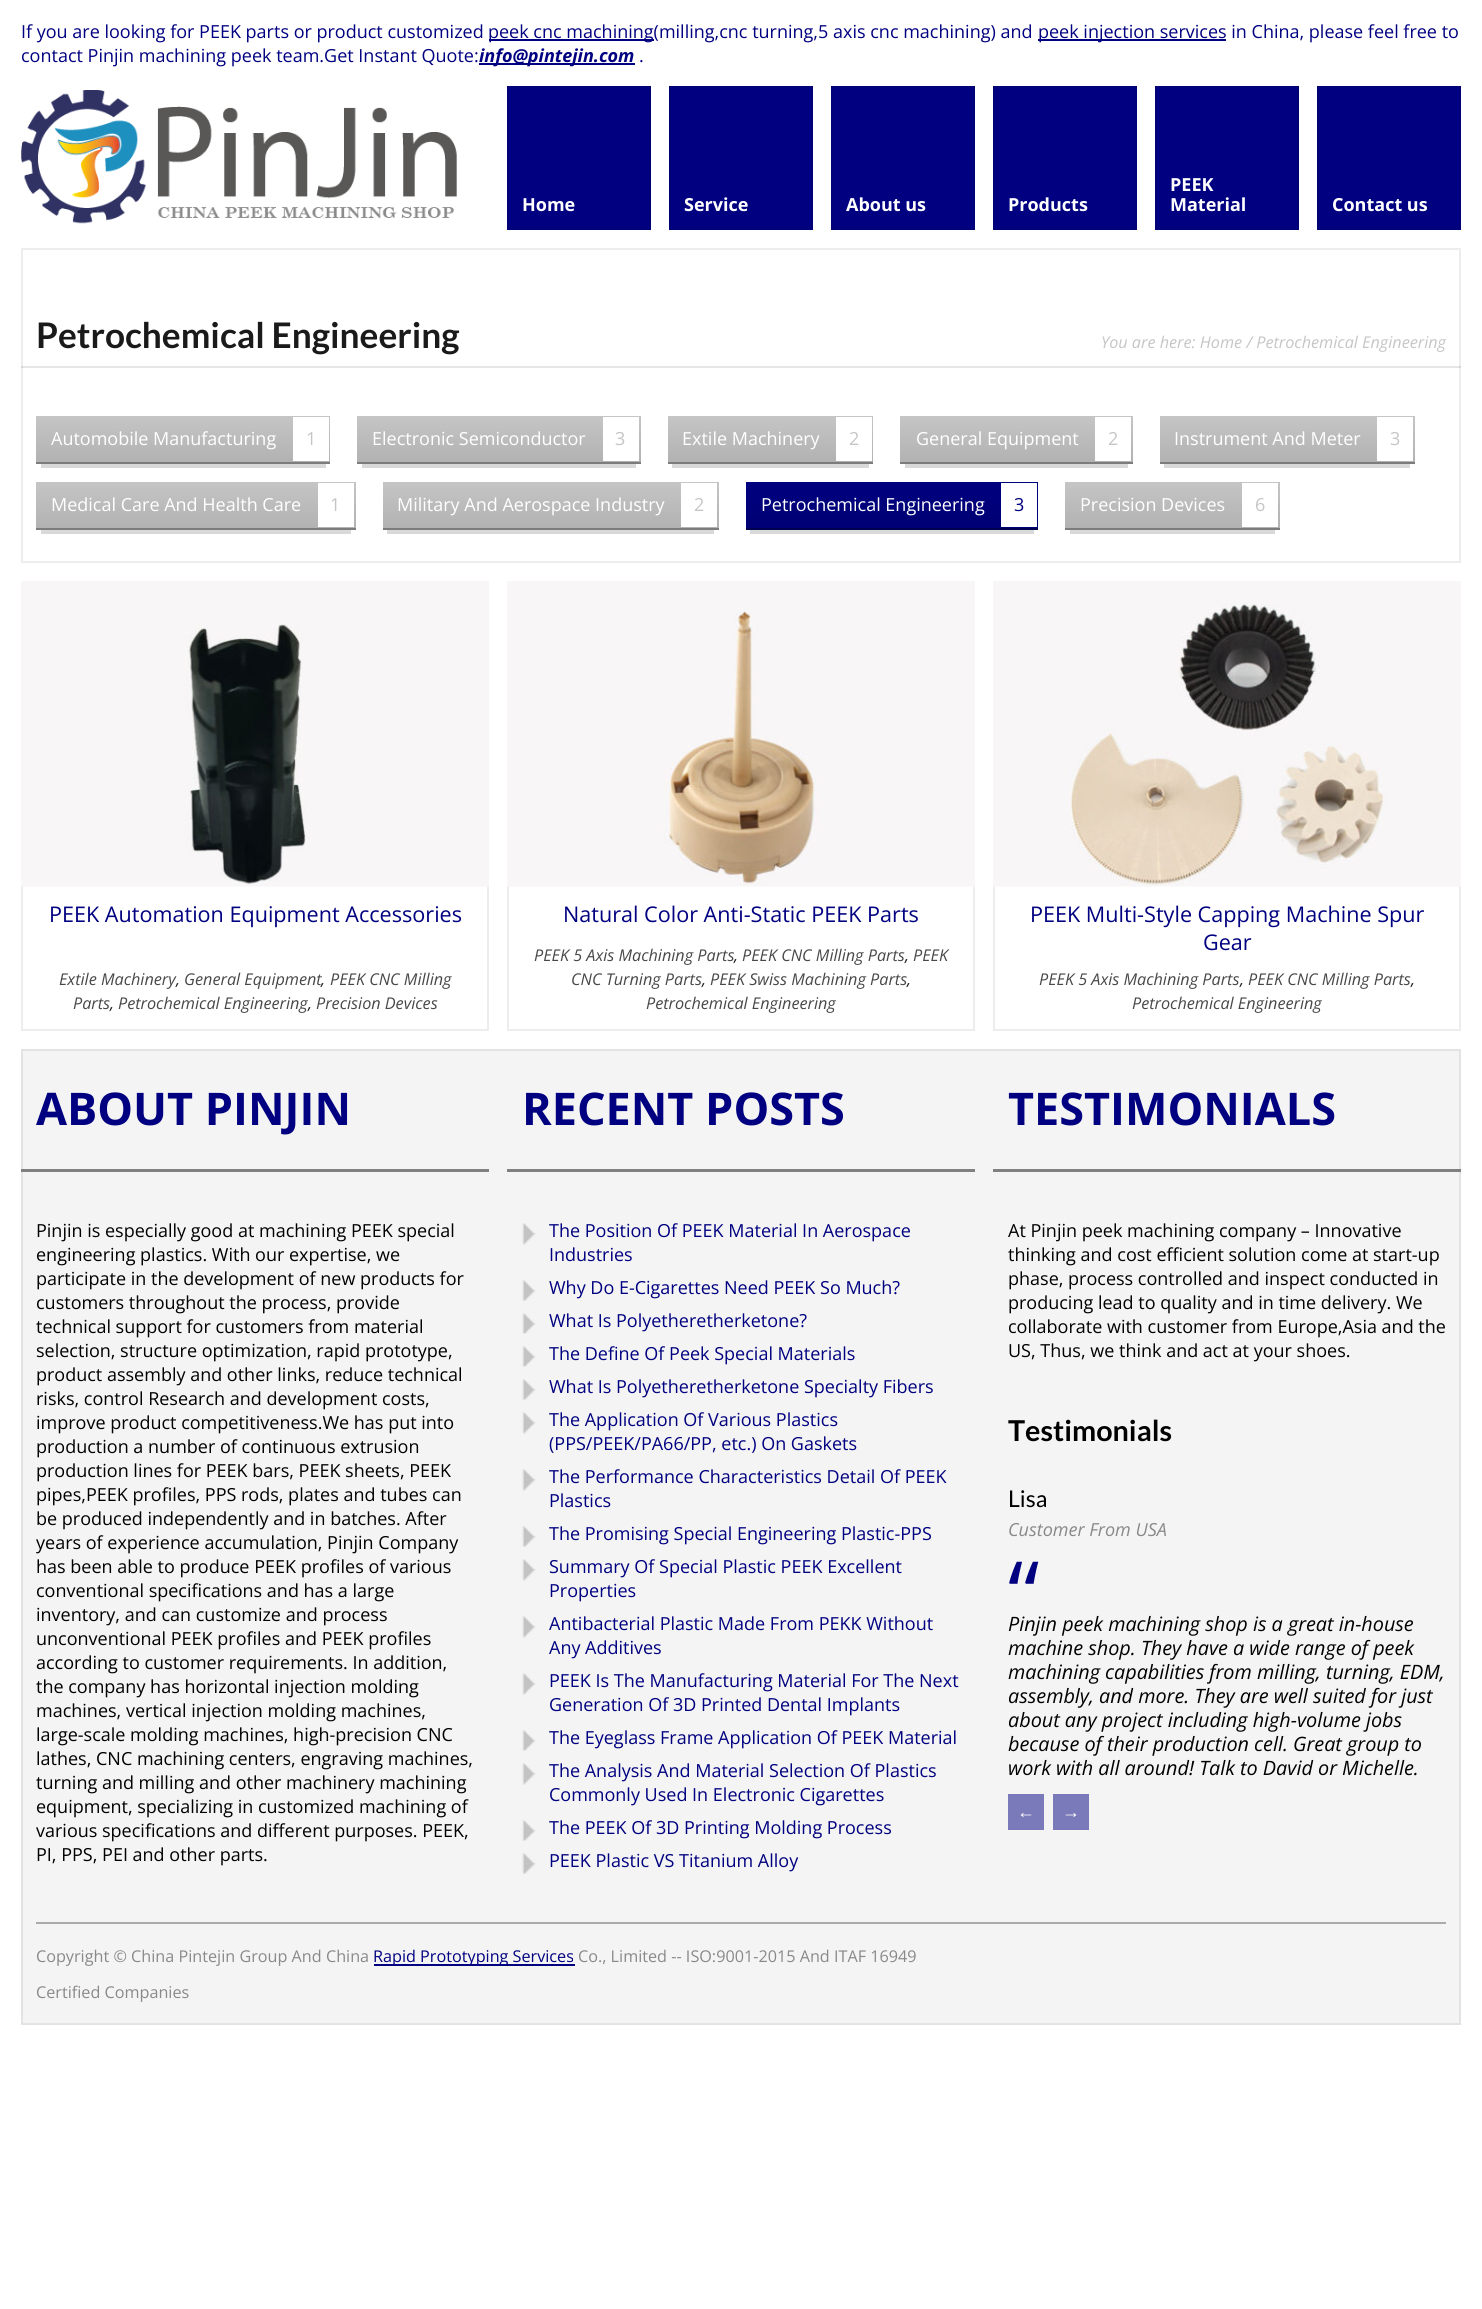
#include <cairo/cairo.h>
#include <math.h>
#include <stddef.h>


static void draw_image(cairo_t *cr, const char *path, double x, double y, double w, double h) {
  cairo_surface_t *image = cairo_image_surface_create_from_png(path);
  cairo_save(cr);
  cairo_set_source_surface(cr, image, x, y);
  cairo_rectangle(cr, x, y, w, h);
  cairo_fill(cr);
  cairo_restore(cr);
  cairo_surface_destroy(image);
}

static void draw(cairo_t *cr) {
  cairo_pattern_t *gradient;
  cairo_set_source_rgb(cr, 1, 1, 1);
  cairo_paint(cr);
  cairo_set_source_rgb(cr, 0, 0, 128 / 255.0);
  cairo_rectangle(cr, 489, 39, 165, 2);
  cairo_fill(cr);
  cairo_rectangle(cr, 1038, 39, 188, 2);
  cairo_fill(cr);
  cairo_rectangle(cr, 479, 63, 156, 2);
  cairo_fill(cr);
  draw_image(cr, "images/1.png", 21, 90, 436, 134);
  cairo_rectangle(cr, 508, 87, 142, 142);
  cairo_fill_preserve(cr);
  cairo_set_source_rgb(cr, 0, 0, 119 / 255.0);
  cairo_stroke(cr);
  cairo_set_source_rgb(cr, 0, 0, 128 / 255.0);
  cairo_rectangle(cr, 670, 87, 142, 142);
  cairo_fill_preserve(cr);
  cairo_set_source_rgb(cr, 0, 0, 119 / 255.0);
  cairo_stroke(cr);
  cairo_set_source_rgb(cr, 0, 0, 128 / 255.0);
  cairo_rectangle(cr, 832, 87, 142, 142);
  cairo_fill_preserve(cr);
  cairo_set_source_rgb(cr, 0, 0, 119 / 255.0);
  cairo_stroke(cr);
  cairo_set_source_rgb(cr, 0, 0, 128 / 255.0);
  cairo_rectangle(cr, 994, 87, 142, 142);
  cairo_fill_preserve(cr);
  cairo_set_source_rgb(cr, 0, 0, 119 / 255.0);
  cairo_stroke(cr);
  cairo_set_source_rgb(cr, 0, 0, 128 / 255.0);
  cairo_rectangle(cr, 1156, 87, 142, 142);
  cairo_fill_preserve(cr);
  cairo_set_source_rgb(cr, 0, 0, 119 / 255.0);
  cairo_stroke(cr);
  cairo_set_source_rgb(cr, 0, 0, 128 / 255.0);
  cairo_rectangle(cr, 1318, 87, 142, 142);
  cairo_fill_preserve(cr);
  cairo_set_source_rgb(cr, 0, 0, 119 / 255.0);
  cairo_stroke(cr);
  cairo_rectangle(cr, 22, 249, 1438, 313);
  cairo_set_source_rgb(cr, 237 / 255.0, 237 / 255.0, 237 / 255.0);
  cairo_stroke(cr);
  cairo_set_source_rgba(cr, 0, 0, 0, 0.1);
  cairo_rectangle(cr, 21, 366, 1440, 2);
  cairo_fill(cr);
  cairo_set_source_rgb(cr, 217 / 255.0, 217 / 255.0, 217 / 255.0);
  cairo_rectangle(cr, 41, 464, 285, 4);
  cairo_fill(cr);
  gradient = cairo_pattern_create_linear(183, 416, 183, 464);
  cairo_pattern_add_color_stop_rgba(gradient, 0, 197 / 255.0, 197 / 255.0, 197 / 255.0, 1);
  cairo_pattern_add_color_stop_rgba(gradient, 1, 177 / 255.0, 177 / 255.0, 177 / 255.0, 1);
  cairo_set_source(cr, gradient);
  cairo_pattern_destroy(gradient);
  cairo_rectangle(cr, 36, 416, 294, 46);
  cairo_fill(cr);
  cairo_set_source_rgb(cr, 124 / 255.0, 124 / 255.0, 124 / 255.0);
  cairo_rectangle(cr, 36, 462, 294, 2);
  cairo_fill(cr);
  cairo_set_source_rgb(cr, 1, 1, 1);
  cairo_rectangle(cr, 293, 417, 36, 44);
  cairo_fill(cr);
  cairo_set_source_rgb(cr, 217 / 255.0, 217 / 255.0, 217 / 255.0);
  cairo_rectangle(cr, 362, 464, 274, 4);
  cairo_fill(cr);
  gradient = cairo_pattern_create_linear(499, 416, 499, 464);
  cairo_pattern_add_color_stop_rgba(gradient, 0, 197 / 255.0, 197 / 255.0, 197 / 255.0, 1);
  cairo_pattern_add_color_stop_rgba(gradient, 1, 177 / 255.0, 177 / 255.0, 177 / 255.0, 1);
  cairo_set_source(cr, gradient);
  cairo_pattern_destroy(gradient);
  cairo_rectangle(cr, 357, 416, 284, 46);
  cairo_fill(cr);
  cairo_set_source_rgb(cr, 124 / 255.0, 124 / 255.0, 124 / 255.0);
  cairo_rectangle(cr, 357, 462, 284, 2);
  cairo_fill(cr);
  cairo_set_source_rgb(cr, 1, 1, 1);
  cairo_rectangle(cr, 603, 417, 36, 44);
  cairo_fill(cr);
  cairo_set_source_rgb(cr, 217 / 255.0, 217 / 255.0, 217 / 255.0);
  cairo_rectangle(cr, 672, 464, 197, 4);
  cairo_fill(cr);
  gradient = cairo_pattern_create_linear(770, 416, 770, 464);
  cairo_pattern_add_color_stop_rgba(gradient, 0, 197 / 255.0, 197 / 255.0, 197 / 255.0, 1);
  cairo_pattern_add_color_stop_rgba(gradient, 1, 177 / 255.0, 177 / 255.0, 177 / 255.0, 1);
  cairo_set_source(cr, gradient);
  cairo_pattern_destroy(gradient);
  cairo_rectangle(cr, 668, 416, 205, 46);
  cairo_fill(cr);
  cairo_set_source_rgb(cr, 124 / 255.0, 124 / 255.0, 124 / 255.0);
  cairo_rectangle(cr, 668, 462, 205, 2);
  cairo_fill(cr);
  cairo_set_source_rgb(cr, 1, 1, 1);
  cairo_rectangle(cr, 836, 417, 36, 44);
  cairo_fill(cr);
  cairo_set_source_rgb(cr, 217 / 255.0, 217 / 255.0, 217 / 255.0);
  cairo_rectangle(cr, 905, 464, 223, 4);
  cairo_fill(cr);
  gradient = cairo_pattern_create_linear(1016, 416, 1016, 464);
  cairo_pattern_add_color_stop_rgba(gradient, 0, 197 / 255.0, 197 / 255.0, 197 / 255.0, 1);
  cairo_pattern_add_color_stop_rgba(gradient, 1, 177 / 255.0, 177 / 255.0, 177 / 255.0, 1);
  cairo_set_source(cr, gradient);
  cairo_pattern_destroy(gradient);
  cairo_rectangle(cr, 900, 416, 233, 46);
  cairo_fill(cr);
  cairo_set_source_rgb(cr, 124 / 255.0, 124 / 255.0, 124 / 255.0);
  cairo_rectangle(cr, 900, 462, 233, 2);
  cairo_fill(cr);
  cairo_set_source_rgb(cr, 1, 1, 1);
  cairo_rectangle(cr, 1095, 417, 36, 44);
  cairo_fill(cr);
  cairo_set_source_rgb(cr, 217 / 255.0, 217 / 255.0, 217 / 255.0);
  cairo_rectangle(cr, 1164, 464, 246, 4);
  cairo_fill(cr);
  gradient = cairo_pattern_create_linear(1287, 416, 1287, 464);
  cairo_pattern_add_color_stop_rgba(gradient, 0, 197 / 255.0, 197 / 255.0, 197 / 255.0, 1);
  cairo_pattern_add_color_stop_rgba(gradient, 1, 177 / 255.0, 177 / 255.0, 177 / 255.0, 1);
  cairo_set_source(cr, gradient);
  cairo_pattern_destroy(gradient);
  cairo_rectangle(cr, 1160, 416, 255, 46);
  cairo_fill(cr);
  cairo_set_source_rgb(cr, 124 / 255.0, 124 / 255.0, 124 / 255.0);
  cairo_rectangle(cr, 1160, 462, 255, 2);
  cairo_fill(cr);
  cairo_set_source_rgb(cr, 1, 1, 1);
  cairo_rectangle(cr, 1377, 417, 36, 44);
  cairo_fill(cr);
  cairo_set_source_rgb(cr, 217 / 255.0, 217 / 255.0, 217 / 255.0);
  cairo_rectangle(cr, 41, 530, 310, 4);
  cairo_fill(cr);
  gradient = cairo_pattern_create_linear(196, 482, 196, 530);
  cairo_pattern_add_color_stop_rgba(gradient, 0, 197 / 255.0, 197 / 255.0, 197 / 255.0, 1);
  cairo_pattern_add_color_stop_rgba(gradient, 1, 177 / 255.0, 177 / 255.0, 177 / 255.0, 1);
  cairo_set_source(cr, gradient);
  cairo_pattern_destroy(gradient);
  cairo_rectangle(cr, 36, 482, 320, 46);
  cairo_fill(cr);
  cairo_set_source_rgb(cr, 124 / 255.0, 124 / 255.0, 124 / 255.0);
  cairo_rectangle(cr, 36, 528, 320, 2);
  cairo_fill(cr);
  cairo_set_source_rgb(cr, 1, 1, 1);
  cairo_rectangle(cr, 318, 483, 36, 44);
  cairo_fill(cr);
  cairo_set_source_rgb(cr, 217 / 255.0, 217 / 255.0, 217 / 255.0);
  cairo_rectangle(cr, 387, 530, 327, 4);
  cairo_fill(cr);
  gradient = cairo_pattern_create_linear(551, 482, 551, 530);
  cairo_pattern_add_color_stop_rgba(gradient, 0, 197 / 255.0, 197 / 255.0, 197 / 255.0, 1);
  cairo_pattern_add_color_stop_rgba(gradient, 1, 177 / 255.0, 177 / 255.0, 177 / 255.0, 1);
  cairo_set_source(cr, gradient);
  cairo_pattern_destroy(gradient);
  cairo_rectangle(cr, 383, 482, 336, 46);
  cairo_fill(cr);
  cairo_set_source_rgb(cr, 124 / 255.0, 124 / 255.0, 124 / 255.0);
  cairo_rectangle(cr, 383, 528, 336, 2);
  cairo_fill(cr);
  cairo_set_source_rgb(cr, 1, 1, 1);
  cairo_rectangle(cr, 681, 483, 36, 44);
  cairo_fill(cr);
  cairo_set_source_rgb(cr, 217 / 255.0, 217 / 255.0, 217 / 255.0);
  cairo_rectangle(cr, 750, 530, 284, 4);
  cairo_fill(cr);
  gradient = cairo_pattern_create_linear(892, 482, 892, 530);
  cairo_pattern_add_color_stop_rgba(gradient, 0, 0, 0, 128 / 255.0, 1);
  cairo_pattern_add_color_stop_rgba(gradient, 1, 0, 0, 115 / 255.0, 1);
  cairo_set_source(cr, gradient);
  cairo_pattern_destroy(gradient);
  cairo_rectangle(cr, 746, 482, 292, 46);
  cairo_fill(cr);
  cairo_set_source_rgb(cr, 0, 0, 81 / 255.0);
  cairo_rectangle(cr, 746, 528, 292, 2);
  cairo_fill(cr);
  cairo_set_source_rgb(cr, 1, 1, 1);
  cairo_rectangle(cr, 1001, 483, 36, 44);
  cairo_fill(cr);
  cairo_set_source_rgb(cr, 217 / 255.0, 217 / 255.0, 217 / 255.0);
  cairo_rectangle(cr, 1070, 530, 205, 4);
  cairo_fill(cr);
  gradient = cairo_pattern_create_linear(1172, 482, 1172, 530);
  cairo_pattern_add_color_stop_rgba(gradient, 0, 197 / 255.0, 197 / 255.0, 197 / 255.0, 1);
  cairo_pattern_add_color_stop_rgba(gradient, 1, 177 / 255.0, 177 / 255.0, 177 / 255.0, 1);
  cairo_set_source(cr, gradient);
  cairo_pattern_destroy(gradient);
  cairo_rectangle(cr, 1065, 482, 215, 46);
  cairo_fill(cr);
  cairo_set_source_rgb(cr, 124 / 255.0, 124 / 255.0, 124 / 255.0);
  cairo_rectangle(cr, 1065, 528, 215, 2);
  cairo_fill(cr);
  cairo_set_source_rgb(cr, 1, 1, 1);
  cairo_rectangle(cr, 1242, 483, 36, 44);
  cairo_fill(cr);
  cairo_rectangle(cr, 22, 582, 466, 448);
  cairo_set_source_rgb(cr, 237 / 255.0, 237 / 255.0, 237 / 255.0);
  cairo_stroke(cr);
  draw_image(cr, "images/2.png", 21, 581, 468, 306);
  cairo_rectangle(cr, 508, 582, 466, 448);
  cairo_stroke(cr);
  draw_image(cr, "images/3.png", 507, 581, 468, 306);
  cairo_rectangle(cr, 994, 582, 466, 448);
  cairo_stroke(cr);
  draw_image(cr, "images/4.png", 993, 581, 468, 306);
  cairo_set_source_rgb(cr, 244 / 255.0, 244 / 255.0, 244 / 255.0);
  cairo_rectangle(cr, 22, 1050, 1438, 974);
  cairo_fill_preserve(cr);
  cairo_set_source_rgb(cr, 227 / 255.0, 227 / 255.0, 227 / 255.0);
  cairo_stroke(cr);
  cairo_set_source_rgb(cr, 128 / 255.0, 128 / 255.0, 128 / 255.0);
  cairo_rectangle(cr, 21, 1169, 468, 3);
  cairo_fill(cr);
  cairo_rectangle(cr, 507, 1169, 468, 3);
  cairo_fill(cr);
  draw_image(cr, "images/5.png", 522, 1223, 14, 22);
  draw_image(cr, "images/6.png", 522, 1280, 14, 21);
  draw_image(cr, "images/6.png", 522, 1313, 14, 21);
  draw_image(cr, "images/6.png", 522, 1346, 14, 21);
  draw_image(cr, "images/6.png", 522, 1379, 14, 21);
  draw_image(cr, "images/5.png", 522, 1412, 14, 22);
  draw_image(cr, "images/5.png", 522, 1469, 14, 22);
  draw_image(cr, "images/6.png", 522, 1526, 14, 21);
  draw_image(cr, "images/5.png", 522, 1559, 14, 22);
  draw_image(cr, "images/5.png", 522, 1616, 14, 22);
  draw_image(cr, "images/5.png", 522, 1673, 14, 22);
  draw_image(cr, "images/6.png", 522, 1730, 14, 21);
  draw_image(cr, "images/5.png", 522, 1763, 14, 22);
  draw_image(cr, "images/6.png", 522, 1820, 14, 21);
  draw_image(cr, "images/6.png", 522, 1853, 14, 21);
  cairo_rectangle(cr, 993, 1169, 468, 3);
  cairo_fill(cr);
  cairo_set_source_rgb(cr, 122 / 255.0, 122 / 255.0, 186 / 255.0);
  cairo_rectangle(cr, 1008, 1794, 36, 36);
  cairo_fill(cr);
  cairo_rectangle(cr, 1053, 1794, 36, 36);
  cairo_fill(cr);
  cairo_set_source_rgb(cr, 171 / 255.0, 171 / 255.0, 171 / 255.0);
  cairo_rectangle(cr, 36, 1922, 1410, 2);
  cairo_fill(cr);
  cairo_set_source_rgb(cr, 0, 0, 128 / 255.0);
  cairo_rectangle(cr, 374, 1964, 201, 2);
  cairo_fill(cr);
  cairo_select_font_face(cr, "Open Sans", CAIRO_FONT_SLANT_NORMAL, CAIRO_FONT_WEIGHT_NORMAL);
  cairo_set_font_size(cr, 18);
  cairo_move_to(cr, 21, 38);
  cairo_show_text(cr, "If you are looking for PEEK parts or product customized");
  cairo_move_to(cr, 488, 38);
  cairo_show_text(cr, "peek cnc machining(milling,cnc turning,5 axis cnc machining) and");
  cairo_move_to(cr, 1038, 38);
  cairo_show_text(cr, "peek injection services in China, please feel free to");
  cairo_move_to(cr, 21, 62);
  cairo_show_text(cr, "contact Pinjin machining peek team.Get Instant Quote:");
  cairo_select_font_face(cr, "Open Sans", CAIRO_FONT_SLANT_ITALIC, CAIRO_FONT_WEIGHT_BOLD);
  cairo_move_to(cr, 479, 62);
  cairo_show_text(cr, "info@pintejin.com");
  cairo_select_font_face(cr, "Open Sans", CAIRO_FONT_SLANT_NORMAL, CAIRO_FONT_WEIGHT_NORMAL);
  cairo_move_to(cr, 639, 62);
  cairo_show_text(cr, ".");
  cairo_select_font_face(cr, "Open Sans", CAIRO_FONT_SLANT_NORMAL, CAIRO_FONT_WEIGHT_BOLD);
  cairo_set_source_rgb(cr, 1, 1, 1);
  cairo_move_to(cr, 522, 211);
  cairo_show_text(cr, "Home");
  cairo_move_to(cr, 684, 211);
  cairo_show_text(cr, "Service");
  cairo_move_to(cr, 846, 211);
  cairo_show_text(cr, "About us");
  cairo_move_to(cr, 1008, 211);
  cairo_show_text(cr, "Products");
  cairo_move_to(cr, 1170, 191);
  cairo_show_text(cr, "PEEK");
  cairo_move_to(cr, 1170, 211);
  cairo_show_text(cr, "Material");
  cairo_move_to(cr, 1332, 211);
  cairo_show_text(cr, "Contact us");
  cairo_select_font_face(cr, "Lato", CAIRO_FONT_SLANT_NORMAL, CAIRO_FONT_WEIGHT_BOLD);
  cairo_set_font_size(cr, 35.25);
  cairo_set_source_rgb(cr, 26 / 255.0, 26 / 255.0, 26 / 255.0);
  cairo_move_to(cr, 36, 348);
  cairo_show_text(cr, "Petrochemical Engineering");
  cairo_select_font_face(cr, "Open Sans", CAIRO_FONT_SLANT_ITALIC, CAIRO_FONT_WEIGHT_NORMAL);
  cairo_set_font_size(cr, 16.2);
  cairo_set_source_rgb(cr, 197 / 255.0, 197 / 255.0, 197 / 255.0);
  cairo_move_to(cr, 1101, 348);
  cairo_show_text(cr, "You are here: Home / Petrochemical Engineering");
  cairo_select_font_face(cr, "Open Sans", CAIRO_FONT_SLANT_NORMAL, CAIRO_FONT_WEIGHT_NORMAL);
  cairo_set_font_size(cr, 18);
  cairo_set_source_rgb(cr, 1, 1, 1);
  cairo_move_to(cr, 51, 445);
  cairo_show_text(cr, "Automobile Manufacturing");
  cairo_set_source_rgb(cr, 197 / 255.0, 197 / 255.0, 197 / 255.0);
  cairo_move_to(cr, 306, 445);
  cairo_show_text(cr, "1");
  cairo_set_source_rgb(cr, 1, 1, 1);
  cairo_move_to(cr, 372, 445);
  cairo_show_text(cr, "Electronic Semiconductor");
  cairo_set_source_rgb(cr, 197 / 255.0, 197 / 255.0, 197 / 255.0);
  cairo_move_to(cr, 615, 445);
  cairo_show_text(cr, "3");
  cairo_set_source_rgb(cr, 1, 1, 1);
  cairo_move_to(cr, 682, 445);
  cairo_show_text(cr, "Extile Machinery");
  cairo_set_source_rgb(cr, 197 / 255.0, 197 / 255.0, 197 / 255.0);
  cairo_move_to(cr, 849, 445);
  cairo_show_text(cr, "2");
  cairo_set_source_rgb(cr, 1, 1, 1);
  cairo_move_to(cr, 916, 445);
  cairo_show_text(cr, "General Equipment");
  cairo_set_source_rgb(cr, 197 / 255.0, 197 / 255.0, 197 / 255.0);
  cairo_move_to(cr, 1108, 445);
  cairo_show_text(cr, "2");
  cairo_set_source_rgb(cr, 1, 1, 1);
  cairo_move_to(cr, 1174, 445);
  cairo_show_text(cr, "Instrument And Meter");
  cairo_set_source_rgb(cr, 197 / 255.0, 197 / 255.0, 197 / 255.0);
  cairo_move_to(cr, 1390, 445);
  cairo_show_text(cr, "3");
  cairo_set_source_rgb(cr, 1, 1, 1);
  cairo_move_to(cr, 51, 511);
  cairo_show_text(cr, "Medical Care And Health Care");
  cairo_set_source_rgb(cr, 197 / 255.0, 197 / 255.0, 197 / 255.0);
  cairo_move_to(cr, 330, 511);
  cairo_show_text(cr, "1");
  cairo_set_source_rgb(cr, 1, 1, 1);
  cairo_move_to(cr, 397, 511);
  cairo_show_text(cr, "Military And Aerospace Industry");
  cairo_set_source_rgb(cr, 197 / 255.0, 197 / 255.0, 197 / 255.0);
  cairo_move_to(cr, 694, 511);
  cairo_show_text(cr, "2");
  cairo_set_source_rgb(cr, 1, 1, 1);
  cairo_move_to(cr, 761, 511);
  cairo_show_text(cr, "Petrochemical Engineering");
  cairo_set_source_rgb(cr, 0, 0, 128 / 255.0);
  cairo_move_to(cr, 1014, 511);
  cairo_show_text(cr, "3");
  cairo_set_source_rgb(cr, 1, 1, 1);
  cairo_move_to(cr, 1080, 511);
  cairo_show_text(cr, "Precision Devices");
  cairo_set_source_rgb(cr, 197 / 255.0, 197 / 255.0, 197 / 255.0);
  cairo_move_to(cr, 1255, 511);
  cairo_show_text(cr, "6");
  cairo_set_font_size(cr, 21.6);
  cairo_set_source_rgb(cr, 0, 0, 128 / 255.0);
  cairo_move_to(cr, 49, 922);
  cairo_show_text(cr, "PEEK Automation Equipment Accessories");
  cairo_select_font_face(cr, "Open Sans", CAIRO_FONT_SLANT_ITALIC, CAIRO_FONT_WEIGHT_NORMAL);
  cairo_set_font_size(cr, 16.2);
  cairo_set_source_rgb(cr, 72 / 255.0, 72 / 255.0, 72 / 255.0);
  cairo_move_to(cr, 330, 985);
  cairo_show_text(cr, "PEEK CNC Milling");
  cairo_set_source_rgb(cr, 26 / 255.0, 26 / 255.0, 26 / 255.0);
  cairo_move_to(cr, 176, 985);
  cairo_show_text(cr, ",");
  cairo_set_source_rgb(cr, 72 / 255.0, 72 / 255.0, 72 / 255.0);
  cairo_move_to(cr, 59, 985);
  cairo_show_text(cr, "Extile Machinery");
  cairo_set_source_rgb(cr, 26 / 255.0, 26 / 255.0, 26 / 255.0);
  cairo_move_to(cr, 321, 985);
  cairo_show_text(cr, ",");
  cairo_set_source_rgb(cr, 72 / 255.0, 72 / 255.0, 72 / 255.0);
  cairo_move_to(cr, 184, 985);
  cairo_show_text(cr, "General Equipment");
  cairo_set_source_rgb(cr, 26 / 255.0, 26 / 255.0, 26 / 255.0);
  cairo_move_to(cr, 110, 1009);
  cairo_show_text(cr, ",");
  cairo_set_source_rgb(cr, 72 / 255.0, 72 / 255.0, 72 / 255.0);
  cairo_move_to(cr, 73, 1009);
  cairo_show_text(cr, "Parts");
  cairo_move_to(cr, 316, 1009);
  cairo_show_text(cr, "Precision Devices");
  cairo_set_source_rgb(cr, 26 / 255.0, 26 / 255.0, 26 / 255.0);
  cairo_move_to(cr, 308, 1009);
  cairo_show_text(cr, ",");
  cairo_set_source_rgb(cr, 72 / 255.0, 72 / 255.0, 72 / 255.0);
  cairo_move_to(cr, 118, 1009);
  cairo_show_text(cr, "Petrochemical Engineering");
  cairo_select_font_face(cr, "Open Sans", CAIRO_FONT_SLANT_NORMAL, CAIRO_FONT_WEIGHT_NORMAL);
  cairo_set_font_size(cr, 21.6);
  cairo_set_source_rgb(cr, 0, 0, 128 / 255.0);
  cairo_move_to(cr, 563, 922);
  cairo_show_text(cr, "Natural Color Anti-Static PEEK Parts");
  cairo_select_font_face(cr, "Open Sans", CAIRO_FONT_SLANT_ITALIC, CAIRO_FONT_WEIGHT_NORMAL);
  cairo_set_font_size(cr, 16.2);
  cairo_set_source_rgb(cr, 72 / 255.0, 72 / 255.0, 72 / 255.0);
  cairo_move_to(cr, 913, 961);
  cairo_show_text(cr, "PEEK");
  cairo_set_source_rgb(cr, 26 / 255.0, 26 / 255.0, 26 / 255.0);
  cairo_move_to(cr, 734, 961);
  cairo_show_text(cr, ",");
  cairo_set_source_rgb(cr, 72 / 255.0, 72 / 255.0, 72 / 255.0);
  cairo_move_to(cr, 534, 961);
  cairo_show_text(cr, "PEEK 5 Axis Machining Parts");
  cairo_set_source_rgb(cr, 26 / 255.0, 26 / 255.0, 26 / 255.0);
  cairo_move_to(cr, 905, 961);
  cairo_show_text(cr, ",");
  cairo_set_source_rgb(cr, 72 / 255.0, 72 / 255.0, 72 / 255.0);
  cairo_move_to(cr, 742, 961);
  cairo_show_text(cr, "PEEK CNC Milling Parts");
  cairo_set_source_rgb(cr, 26 / 255.0, 26 / 255.0, 26 / 255.0);
  cairo_move_to(cr, 702, 985);
  cairo_show_text(cr, ",");
  cairo_set_source_rgb(cr, 72 / 255.0, 72 / 255.0, 72 / 255.0);
  cairo_move_to(cr, 571, 985);
  cairo_show_text(cr, "CNC Turning Parts");
  cairo_set_source_rgb(cr, 26 / 255.0, 26 / 255.0, 26 / 255.0);
  cairo_move_to(cr, 907, 985);
  cairo_show_text(cr, ",");
  cairo_set_source_rgb(cr, 72 / 255.0, 72 / 255.0, 72 / 255.0);
  cairo_move_to(cr, 710, 985);
  cairo_show_text(cr, "PEEK Swiss Machining Parts");
  cairo_move_to(cr, 646, 1009);
  cairo_show_text(cr, "Petrochemical Engineering");
  cairo_select_font_face(cr, "Open Sans", CAIRO_FONT_SLANT_NORMAL, CAIRO_FONT_WEIGHT_NORMAL);
  cairo_set_font_size(cr, 21.6);
  cairo_set_source_rgb(cr, 0, 0, 128 / 255.0);
  cairo_move_to(cr, 1030, 922);
  cairo_show_text(cr, "PEEK Multi-Style Capping Machine Spur");
  cairo_move_to(cr, 1203, 950);
  cairo_show_text(cr, "Gear");
  cairo_select_font_face(cr, "Open Sans", CAIRO_FONT_SLANT_ITALIC, CAIRO_FONT_WEIGHT_NORMAL);
  cairo_set_font_size(cr, 16.2);
  cairo_set_source_rgb(cr, 26 / 255.0, 26 / 255.0, 26 / 255.0);
  cairo_move_to(cr, 1240, 985);
  cairo_show_text(cr, ",");
  cairo_set_source_rgb(cr, 72 / 255.0, 72 / 255.0, 72 / 255.0);
  cairo_move_to(cr, 1039, 985);
  cairo_show_text(cr, "PEEK 5 Axis Machining Parts");
  cairo_set_source_rgb(cr, 26 / 255.0, 26 / 255.0, 26 / 255.0);
  cairo_move_to(cr, 1411, 985);
  cairo_show_text(cr, ",");
  cairo_set_source_rgb(cr, 72 / 255.0, 72 / 255.0, 72 / 255.0);
  cairo_move_to(cr, 1248, 985);
  cairo_show_text(cr, "PEEK CNC Milling Parts");
  cairo_move_to(cr, 1132, 1009);
  cairo_show_text(cr, "Petrochemical Engineering");
  cairo_select_font_face(cr, "Open Sans", CAIRO_FONT_SLANT_NORMAL, CAIRO_FONT_WEIGHT_BOLD);
  cairo_set_font_size(cr, 45);
  cairo_set_source_rgb(cr, 0, 0, 128 / 255.0);
  cairo_move_to(cr, 36, 1125);
  cairo_show_text(cr, "ABOUT PINJIN");
  cairo_select_font_face(cr, "Open Sans", CAIRO_FONT_SLANT_NORMAL, CAIRO_FONT_WEIGHT_NORMAL);
  cairo_set_font_size(cr, 18);
  cairo_set_source_rgb(cr, 0, 0, 0);
  cairo_move_to(cr, 36, 1237);
  cairo_show_text(cr, "Pinjin is especially good at machining PEEK special");
  cairo_move_to(cr, 36, 1261);
  cairo_show_text(cr, "engineering plastics. With our expertise, we");
  cairo_move_to(cr, 36, 1285);
  cairo_show_text(cr, "participate in the development of new products for");
  cairo_move_to(cr, 36, 1309);
  cairo_show_text(cr, "customers throughout the process, provide");
  cairo_move_to(cr, 36, 1333);
  cairo_show_text(cr, "technical support for customers from material");
  cairo_move_to(cr, 36, 1357);
  cairo_show_text(cr, "selection, structure optimization, rapid prototype,");
  cairo_move_to(cr, 36, 1381);
  cairo_show_text(cr, "product assembly and other links, reduce technical");
  cairo_move_to(cr, 36, 1405);
  cairo_show_text(cr, "risks, control Research and development costs,");
  cairo_move_to(cr, 36, 1429);
  cairo_show_text(cr, "improve product competitiveness.We has put into");
  cairo_move_to(cr, 36, 1453);
  cairo_show_text(cr, "production a number of continuous extrusion");
  cairo_move_to(cr, 36, 1477);
  cairo_show_text(cr, "production lines for PEEK bars, PEEK sheets, PEEK");
  cairo_move_to(cr, 36, 1501);
  cairo_show_text(cr, "pipes,PEEK profiles, PPS rods, plates and tubes can");
  cairo_move_to(cr, 36, 1525);
  cairo_show_text(cr, "be produced independently and in batches. After");
  cairo_move_to(cr, 36, 1549);
  cairo_show_text(cr, "years of experience accumulation, Pinjin Company");
  cairo_move_to(cr, 36, 1573);
  cairo_show_text(cr, "has been able to produce PEEK profiles of various");
  cairo_move_to(cr, 36, 1597);
  cairo_show_text(cr, "conventional specifications and has a large");
  cairo_move_to(cr, 36, 1621);
  cairo_show_text(cr, "inventory, and can customize and process");
  cairo_move_to(cr, 36, 1645);
  cairo_show_text(cr, "unconventional PEEK profiles and PEEK profiles");
  cairo_move_to(cr, 36, 1669);
  cairo_show_text(cr, "according to customer requirements. In addition,");
  cairo_move_to(cr, 36, 1693);
  cairo_show_text(cr, "the company has horizontal injection molding");
  cairo_move_to(cr, 36, 1717);
  cairo_show_text(cr, "machines, vertical injection molding machines,");
  cairo_move_to(cr, 36, 1741);
  cairo_show_text(cr, "large-scale molding machines, high-precision CNC");
  cairo_move_to(cr, 36, 1765);
  cairo_show_text(cr, "lathes, CNC machining centers, engraving machines,");
  cairo_move_to(cr, 36, 1789);
  cairo_show_text(cr, "turning and milling and other machinery machining");
  cairo_move_to(cr, 36, 1813);
  cairo_show_text(cr, "equipment, specializing in customized machining of");
  cairo_move_to(cr, 36, 1837);
  cairo_show_text(cr, "various specifications and different purposes. PEEK,");
  cairo_move_to(cr, 36, 1861);
  cairo_show_text(cr, "PI, PPS, PEI and other parts.");
  cairo_select_font_face(cr, "Open Sans", CAIRO_FONT_SLANT_NORMAL, CAIRO_FONT_WEIGHT_BOLD);
  cairo_set_font_size(cr, 45);
  cairo_set_source_rgb(cr, 0, 0, 128 / 255.0);
  cairo_move_to(cr, 522, 1125);
  cairo_show_text(cr, "RECENT POSTS");
  cairo_select_font_face(cr, "Open Sans", CAIRO_FONT_SLANT_NORMAL, CAIRO_FONT_WEIGHT_NORMAL);
  cairo_set_font_size(cr, 18);
  cairo_move_to(cr, 549, 1237);
  cairo_show_text(cr, "The Position Of PEEK Material In Aerospace");
  cairo_move_to(cr, 549, 1261);
  cairo_show_text(cr, "Industries");
  cairo_move_to(cr, 549, 1294);
  cairo_show_text(cr, "Why Do E-Cigarettes Need PEEK So Much?");
  cairo_move_to(cr, 549, 1327);
  cairo_show_text(cr, "What Is Polyetheretherketone?");
  cairo_move_to(cr, 549, 1360);
  cairo_show_text(cr, "The Define Of Peek Special Materials");
  cairo_move_to(cr, 549, 1393);
  cairo_show_text(cr, "What Is Polyetheretherketone Specialty Fibers");
  cairo_move_to(cr, 549, 1426);
  cairo_show_text(cr, "The Application Of Various Plastics");
  cairo_move_to(cr, 549, 1450);
  cairo_show_text(cr, "(PPS/PEEK/PA66/PP, etc.) On Gaskets");
  cairo_move_to(cr, 549, 1483);
  cairo_show_text(cr, "The Performance Characteristics Detail Of PEEK");
  cairo_move_to(cr, 549, 1507);
  cairo_show_text(cr, "Plastics");
  cairo_move_to(cr, 549, 1540);
  cairo_show_text(cr, "The Promising Special Engineering Plastic-PPS");
  cairo_move_to(cr, 549, 1573);
  cairo_show_text(cr, "Summary Of Special Plastic PEEK Excellent");
  cairo_move_to(cr, 549, 1597);
  cairo_show_text(cr, "Properties");
  cairo_move_to(cr, 549, 1630);
  cairo_show_text(cr, "Antibacterial Plastic Made From PEKK Without");
  cairo_move_to(cr, 549, 1654);
  cairo_show_text(cr, "Any Additives");
  cairo_move_to(cr, 549, 1687);
  cairo_show_text(cr, "PEEK Is The Manufacturing Material For The Next");
  cairo_move_to(cr, 549, 1711);
  cairo_show_text(cr, "Generation Of 3D Printed Dental Implants");
  cairo_move_to(cr, 549, 1744);
  cairo_show_text(cr, "The Eyeglass Frame Application Of PEEK Material");
  cairo_move_to(cr, 549, 1777);
  cairo_show_text(cr, "The Analysis And Material Selection Of Plastics");
  cairo_move_to(cr, 549, 1801);
  cairo_show_text(cr, "Commonly Used In Electronic Cigarettes");
  cairo_move_to(cr, 549, 1834);
  cairo_show_text(cr, "The PEEK Of 3D Printing Molding Process");
  cairo_move_to(cr, 549, 1867);
  cairo_show_text(cr, "PEEK Plastic VS Titanium Alloy");
  cairo_select_font_face(cr, "Open Sans", CAIRO_FONT_SLANT_NORMAL, CAIRO_FONT_WEIGHT_BOLD);
  cairo_set_font_size(cr, 45);
  cairo_move_to(cr, 1008, 1125);
  cairo_show_text(cr, "TESTIMONIALS");
  cairo_select_font_face(cr, "Open Sans", CAIRO_FONT_SLANT_NORMAL, CAIRO_FONT_WEIGHT_NORMAL);
  cairo_set_font_size(cr, 18);
  cairo_set_source_rgb(cr, 0, 0, 0);
  cairo_move_to(cr, 1008, 1237);
  cairo_show_text(cr, "At Pinjin peek machining company – Innovative");
  cairo_move_to(cr, 1008, 1261);
  cairo_show_text(cr, "thinking and cost efficient solution come at start-up");
  cairo_move_to(cr, 1008, 1285);
  cairo_show_text(cr, "phase, process controlled and inspect conducted in");
  cairo_move_to(cr, 1008, 1309);
  cairo_show_text(cr, "producing lead to quality and in time delivery. We");
  cairo_move_to(cr, 1008, 1333);
  cairo_show_text(cr, "collaborate with customer from Europe,Asia and the");
  cairo_move_to(cr, 1008, 1357);
  cairo_show_text(cr, "US, Thus, we think and act at your shoes.");
  cairo_select_font_face(cr, "Lato", CAIRO_FONT_SLANT_NORMAL, CAIRO_FONT_WEIGHT_BOLD);
  cairo_set_font_size(cr, 28.75);
  cairo_move_to(cr, 1008, 1441);
  cairo_show_text(cr, "Testimonials");
  cairo_select_font_face(cr, "Lato", CAIRO_FONT_SLANT_NORMAL, CAIRO_FONT_WEIGHT_NORMAL);
  cairo_set_font_size(cr, 23);
  cairo_move_to(cr, 1008, 1507);
  cairo_show_text(cr, "Lisa");
  cairo_select_font_face(cr, "Open Sans", CAIRO_FONT_SLANT_ITALIC, CAIRO_FONT_WEIGHT_NORMAL);
  cairo_set_font_size(cr, 18);
  cairo_set_source_rgb(cr, 137 / 255.0, 137 / 255.0, 137 / 255.0);
  cairo_move_to(cr, 1008, 1536);
  cairo_show_text(cr, "Customer From USA");
  cairo_select_font_face(cr, "Open Sans", CAIRO_FONT_SLANT_NORMAL, CAIRO_FONT_WEIGHT_NORMAL);
  cairo_set_font_size(cr, 90);
  cairo_set_source_rgb(cr, 0, 0, 128 / 255.0);
  cairo_move_to(cr, 1008, 1626);
  cairo_show_text(cr, "“");
  cairo_select_font_face(cr, "Open Sans", CAIRO_FONT_SLANT_ITALIC, CAIRO_FONT_WEIGHT_NORMAL);
  cairo_set_font_size(cr, 19.8);
  cairo_set_source_rgb(cr, 0, 0, 0);
  cairo_move_to(cr, 1008, 1631);
  cairo_show_text(cr, "Pinjin peek machining shop is a great in-house");
  cairo_move_to(cr, 1008, 1655);
  cairo_show_text(cr, "machine shop. They have a wide range of peek");
  cairo_move_to(cr, 1008, 1679);
  cairo_show_text(cr, "machining capabilities from milling, turning, EDM,");
  cairo_move_to(cr, 1008, 1703);
  cairo_show_text(cr, "assembly, and more. They are well suited for just");
  cairo_move_to(cr, 1008, 1727);
  cairo_show_text(cr, "about any project including high-volume jobs");
  cairo_move_to(cr, 1008, 1751);
  cairo_show_text(cr, "because of their production cell. Great group to");
  cairo_move_to(cr, 1008, 1775);
  cairo_show_text(cr, "work with all around! Talk to David or Michelle.");
  cairo_select_font_face(cr, "Liberation Serif", CAIRO_FONT_SLANT_NORMAL, CAIRO_FONT_WEIGHT_NORMAL);
  cairo_set_font_size(cr, 18);
  cairo_set_source_rgb(cr, 1, 1, 1);
  cairo_move_to(cr, 1017, 1818);
  cairo_show_text(cr, "←");
  cairo_move_to(cr, 1062, 1818);
  cairo_show_text(cr, "→");
  cairo_select_font_face(cr, "Open Sans", CAIRO_FONT_SLANT_NORMAL, CAIRO_FONT_WEIGHT_NORMAL);
  cairo_set_font_size(cr, 16.2);
  cairo_set_source_rgb(cr, 137 / 255.0, 137 / 255.0, 137 / 255.0);
  cairo_move_to(cr, 36, 1962);
  cairo_show_text(cr, "Copyright © China Pintejin Group And China");
  cairo_set_source_rgb(cr, 0, 0, 128 / 255.0);
  cairo_move_to(cr, 373, 1962);
  cairo_show_text(cr, "Rapid Prototyping Services");
  cairo_set_source_rgb(cr, 137 / 255.0, 137 / 255.0, 137 / 255.0);
  cairo_move_to(cr, 578, 1962);
  cairo_show_text(cr, "Co., Limited -- ISO:9001-2015 And ITAF 16949");
  cairo_move_to(cr, 36, 1998);
  cairo_show_text(cr, "Certified Companies");
}

int main(void) {
  cairo_surface_t *surface = cairo_image_surface_create(CAIRO_FORMAT_RGB24, 1482, 2309);
  cairo_t *cr = cairo_create(surface);
  cairo_font_options_t *options = cairo_font_options_create();
  cairo_font_options_set_hint_metrics(options, CAIRO_HINT_METRICS_OFF);
  cairo_font_options_set_hint_style(options, CAIRO_HINT_STYLE_NONE);
  cairo_set_font_options(cr, options);
  cairo_set_miter_limit(cr, 4);
  draw(cr);
  cairo_surface_write_to_png(surface, "out.png");
  cairo_font_options_destroy(options);
  cairo_destroy(cr);
  cairo_surface_destroy(surface);
  return 0;
}
